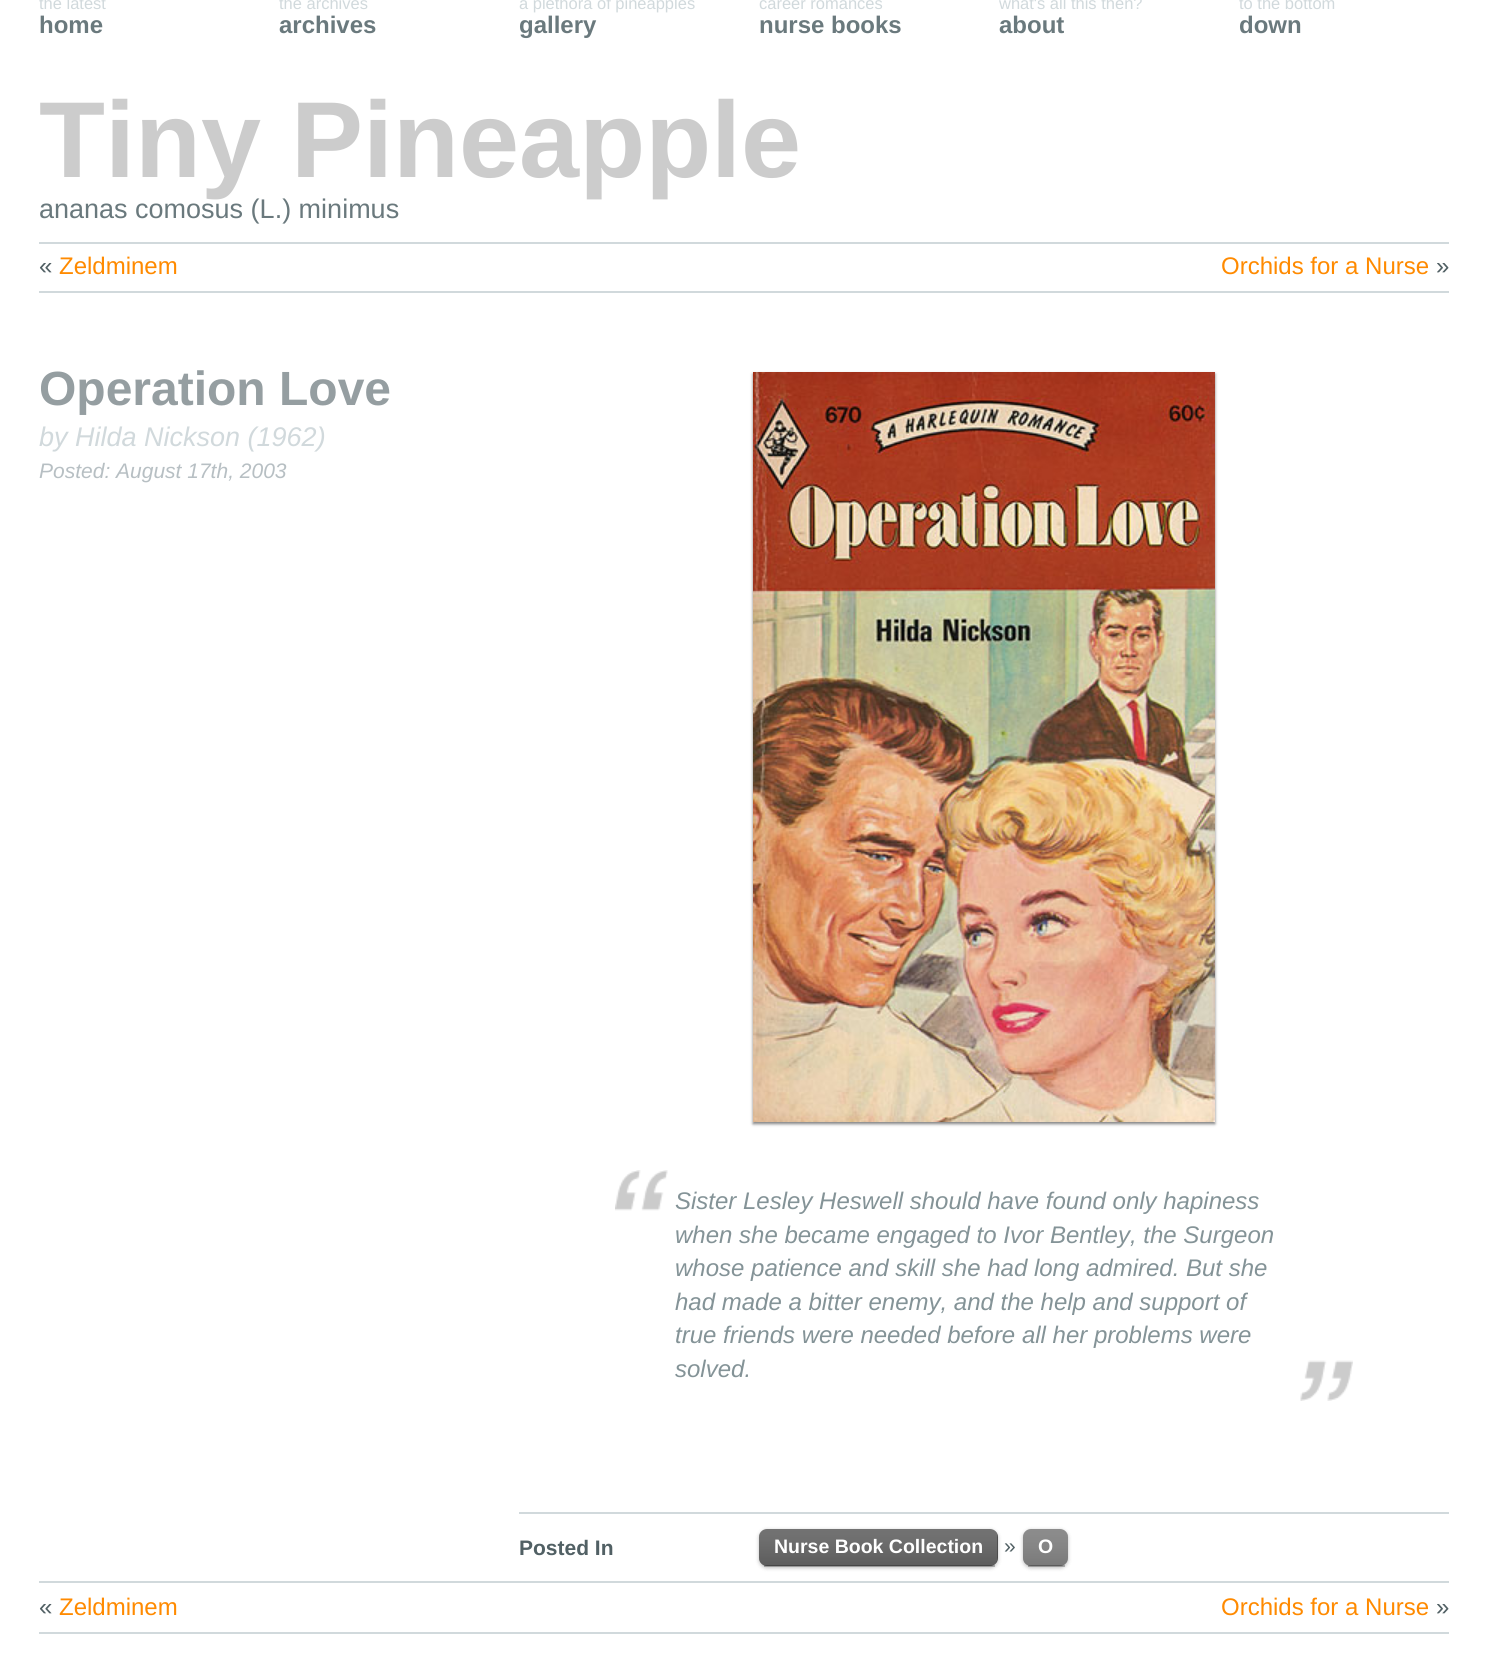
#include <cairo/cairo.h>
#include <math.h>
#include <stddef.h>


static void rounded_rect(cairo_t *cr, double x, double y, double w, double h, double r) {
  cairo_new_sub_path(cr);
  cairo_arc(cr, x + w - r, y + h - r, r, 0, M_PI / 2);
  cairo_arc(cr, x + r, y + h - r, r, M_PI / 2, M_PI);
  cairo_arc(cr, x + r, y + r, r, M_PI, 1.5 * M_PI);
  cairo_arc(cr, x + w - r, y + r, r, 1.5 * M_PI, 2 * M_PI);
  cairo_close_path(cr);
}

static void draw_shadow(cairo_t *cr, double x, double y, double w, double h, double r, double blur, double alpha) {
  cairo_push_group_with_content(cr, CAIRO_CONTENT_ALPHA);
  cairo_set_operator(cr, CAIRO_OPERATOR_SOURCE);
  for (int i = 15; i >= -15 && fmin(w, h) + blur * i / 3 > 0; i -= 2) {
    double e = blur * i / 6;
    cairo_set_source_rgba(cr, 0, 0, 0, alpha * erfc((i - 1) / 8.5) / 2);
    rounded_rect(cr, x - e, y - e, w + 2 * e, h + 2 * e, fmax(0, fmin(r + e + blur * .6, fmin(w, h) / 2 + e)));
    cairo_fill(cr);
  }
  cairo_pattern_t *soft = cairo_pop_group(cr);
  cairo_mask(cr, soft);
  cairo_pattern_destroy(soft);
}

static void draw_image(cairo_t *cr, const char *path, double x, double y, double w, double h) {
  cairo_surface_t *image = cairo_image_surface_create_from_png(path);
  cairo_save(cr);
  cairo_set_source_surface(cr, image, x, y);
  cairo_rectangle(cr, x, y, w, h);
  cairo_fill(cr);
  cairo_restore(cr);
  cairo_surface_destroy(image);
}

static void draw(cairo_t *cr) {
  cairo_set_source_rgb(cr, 1, 1, 1);
  cairo_paint(cr);
  cairo_set_source_rgb(cr, 209 / 255.0, 217 / 255.0, 220 / 255.0);
  cairo_rectangle(cr, 39, 242, 1410, 2);
  cairo_fill(cr);
  cairo_rectangle(cr, 39, 291, 1410, 2);
  cairo_fill(cr);
  cairo_rectangle(cr, 39, 1581, 1410, 2);
  cairo_fill(cr);
  cairo_set_source_rgb(cr, 0, 0, 0);
  draw_shadow(cr, 753, 374, 462, 750, 0, 1.5, 0.5);
  draw_image(cr, "images/1.png", 753, 372, 462, 750);
  draw_image(cr, "images/2.png", 615, 1170, 53, 41);
  draw_image(cr, "images/3.png", 1300, 1360, 53, 41);
  cairo_set_source_rgb(cr, 209 / 255.0, 217 / 255.0, 220 / 255.0);
  cairo_rectangle(cr, 519, 1512, 930, 2);
  cairo_fill(cr);
  cairo_set_source_rgb(cr, 0, 0, 0);
  draw_shadow(cr, 759, 1530, 239, 38, 8, 2, 0.25);
  cairo_set_source_rgb(cr, 68 / 255.0, 68 / 255.0, 68 / 255.0);
  rounded_rect(cr, 759, 1529, 239, 37, 8);
  cairo_fill(cr);
  draw_image(cr, "images/4.png", 759, 1529, 239, 37);
  cairo_set_source_rgba(cr, 0, 0, 0, 0.25);
  cairo_rectangle(cr, 764, 1565, 231, 2);
  cairo_fill(cr);
  cairo_set_source_rgb(cr, 0, 0, 0);
  draw_shadow(cr, 1023, 1530, 45, 38, 8, 2, 0.25);
  cairo_set_source_rgb(cr, 102 / 255.0, 102 / 255.0, 102 / 255.0);
  rounded_rect(cr, 1023, 1529, 45, 37, 8);
  cairo_fill(cr);
  draw_image(cr, "images/5.png", 1023, 1529, 45, 37);
  cairo_set_source_rgba(cr, 0, 0, 0, 0.25);
  cairo_rectangle(cr, 1028, 1565, 37, 2);
  cairo_fill(cr);
  cairo_set_source_rgb(cr, 209 / 255.0, 217 / 255.0, 220 / 255.0);
  cairo_rectangle(cr, 39, 1632, 1410, 2);
  cairo_fill(cr);
  cairo_select_font_face(cr, "Liberation Sans", CAIRO_FONT_SLANT_NORMAL, CAIRO_FONT_WEIGHT_NORMAL);
  cairo_set_font_size(cr, 16.5);
  cairo_move_to(cr, 39, 9);
  cairo_show_text(cr, "the latest");
  cairo_select_font_face(cr, "Liberation Sans", CAIRO_FONT_SLANT_NORMAL, CAIRO_FONT_WEIGHT_BOLD);
  cairo_set_font_size(cr, 24);
  cairo_set_source_rgb(cr, 106 / 255.0, 121 / 255.0, 125 / 255.0);
  cairo_move_to(cr, 39, 33);
  cairo_show_text(cr, "home");
  cairo_select_font_face(cr, "Liberation Sans", CAIRO_FONT_SLANT_NORMAL, CAIRO_FONT_WEIGHT_NORMAL);
  cairo_set_font_size(cr, 16.5);
  cairo_set_source_rgb(cr, 209 / 255.0, 217 / 255.0, 220 / 255.0);
  cairo_move_to(cr, 279, 9);
  cairo_show_text(cr, "the archives");
  cairo_select_font_face(cr, "Liberation Sans", CAIRO_FONT_SLANT_NORMAL, CAIRO_FONT_WEIGHT_BOLD);
  cairo_set_font_size(cr, 24);
  cairo_set_source_rgb(cr, 106 / 255.0, 121 / 255.0, 125 / 255.0);
  cairo_move_to(cr, 279, 33);
  cairo_show_text(cr, "archives");
  cairo_select_font_face(cr, "Liberation Sans", CAIRO_FONT_SLANT_NORMAL, CAIRO_FONT_WEIGHT_NORMAL);
  cairo_set_font_size(cr, 16.5);
  cairo_set_source_rgb(cr, 209 / 255.0, 217 / 255.0, 220 / 255.0);
  cairo_move_to(cr, 519, 9);
  cairo_show_text(cr, "a plethora of pineapples");
  cairo_select_font_face(cr, "Liberation Sans", CAIRO_FONT_SLANT_NORMAL, CAIRO_FONT_WEIGHT_BOLD);
  cairo_set_font_size(cr, 24);
  cairo_set_source_rgb(cr, 106 / 255.0, 121 / 255.0, 125 / 255.0);
  cairo_move_to(cr, 519, 33);
  cairo_show_text(cr, "gallery");
  cairo_select_font_face(cr, "Liberation Sans", CAIRO_FONT_SLANT_NORMAL, CAIRO_FONT_WEIGHT_NORMAL);
  cairo_set_font_size(cr, 16.5);
  cairo_set_source_rgb(cr, 209 / 255.0, 217 / 255.0, 220 / 255.0);
  cairo_move_to(cr, 759, 9);
  cairo_show_text(cr, "career romances");
  cairo_select_font_face(cr, "Liberation Sans", CAIRO_FONT_SLANT_NORMAL, CAIRO_FONT_WEIGHT_BOLD);
  cairo_set_font_size(cr, 24);
  cairo_set_source_rgb(cr, 106 / 255.0, 121 / 255.0, 125 / 255.0);
  cairo_move_to(cr, 759, 33);
  cairo_show_text(cr, "nurse books");
  cairo_select_font_face(cr, "Liberation Sans", CAIRO_FONT_SLANT_NORMAL, CAIRO_FONT_WEIGHT_NORMAL);
  cairo_set_font_size(cr, 16.5);
  cairo_set_source_rgb(cr, 209 / 255.0, 217 / 255.0, 220 / 255.0);
  cairo_move_to(cr, 999, 9);
  cairo_show_text(cr, "what's all this then?");
  cairo_select_font_face(cr, "Liberation Sans", CAIRO_FONT_SLANT_NORMAL, CAIRO_FONT_WEIGHT_BOLD);
  cairo_set_font_size(cr, 24);
  cairo_set_source_rgb(cr, 106 / 255.0, 121 / 255.0, 125 / 255.0);
  cairo_move_to(cr, 999, 33);
  cairo_show_text(cr, "about");
  cairo_select_font_face(cr, "Liberation Sans", CAIRO_FONT_SLANT_NORMAL, CAIRO_FONT_WEIGHT_NORMAL);
  cairo_set_font_size(cr, 16.5);
  cairo_set_source_rgb(cr, 209 / 255.0, 217 / 255.0, 220 / 255.0);
  cairo_move_to(cr, 1239, 9);
  cairo_show_text(cr, "to the bottom");
  cairo_select_font_face(cr, "Liberation Sans", CAIRO_FONT_SLANT_NORMAL, CAIRO_FONT_WEIGHT_BOLD);
  cairo_set_font_size(cr, 24);
  cairo_set_source_rgb(cr, 106 / 255.0, 121 / 255.0, 125 / 255.0);
  cairo_move_to(cr, 1239, 33);
  cairo_show_text(cr, "down");
  cairo_set_font_size(cr, 108);
  cairo_set_source_rgb(cr, 204 / 255.0, 204 / 255.0, 204 / 255.0);
  cairo_move_to(cr, 39, 177);
  cairo_show_text(cr, "Tiny Pineapple");
  cairo_select_font_face(cr, "Liberation Sans", CAIRO_FONT_SLANT_NORMAL, CAIRO_FONT_WEIGHT_NORMAL);
  cairo_set_font_size(cr, 27);
  cairo_set_source_rgb(cr, 106 / 255.0, 121 / 255.0, 125 / 255.0);
  cairo_move_to(cr, 39, 218);
  cairo_show_text(cr, "ananas comosus (L.) minimus");
  cairo_set_font_size(cr, 24);
  cairo_set_source_rgb(cr, 81 / 255.0, 96 / 255.0, 100 / 255.0);
  cairo_move_to(cr, 39, 274);
  cairo_show_text(cr, "«");
  cairo_set_source_rgb(cr, 1, 138 / 255.0, 0);
  cairo_move_to(cr, 59, 274);
  cairo_show_text(cr, "Zeldminem");
  cairo_move_to(cr, 1221, 274);
  cairo_show_text(cr, "Orchids for a Nurse");
  cairo_set_source_rgb(cr, 81 / 255.0, 96 / 255.0, 100 / 255.0);
  cairo_move_to(cr, 1436, 274);
  cairo_show_text(cr, "»");
  cairo_select_font_face(cr, "Liberation Sans", CAIRO_FONT_SLANT_NORMAL, CAIRO_FONT_WEIGHT_BOLD);
  cairo_set_font_size(cr, 48);
  cairo_set_source_rgb(cr, 149 / 255.0, 158 / 255.0, 161 / 255.0);
  cairo_move_to(cr, 39, 405);
  cairo_show_text(cr, "Operation Love");
  cairo_select_font_face(cr, "Liberation Sans", CAIRO_FONT_SLANT_ITALIC, CAIRO_FONT_WEIGHT_NORMAL);
  cairo_set_font_size(cr, 27);
  cairo_set_source_rgb(cr, 209 / 255.0, 217 / 255.0, 220 / 255.0);
  cairo_move_to(cr, 39, 446);
  cairo_show_text(cr, "by Hilda Nickson (1962)");
  cairo_set_font_size(cr, 21);
  cairo_set_source_rgb(cr, 183 / 255.0, 191 / 255.0, 195 / 255.0);
  cairo_move_to(cr, 39, 478);
  cairo_show_text(cr, "Posted: August 17th, 2003");
  cairo_set_font_size(cr, 24);
  cairo_set_source_rgb(cr, 132 / 255.0, 147 / 255.0, 151 / 255.0);
  cairo_move_to(cr, 675, 1209);
  cairo_show_text(cr, "Sister Lesley Heswell should have found only hapiness");
  cairo_move_to(cr, 675, 1243);
  cairo_show_text(cr, "when she became engaged to Ivor Bentley, the Surgeon");
  cairo_move_to(cr, 675, 1276);
  cairo_show_text(cr, "whose patience and skill she had long admired. But she");
  cairo_move_to(cr, 675, 1310);
  cairo_show_text(cr, "had made a bitter enemy, and the help and support of");
  cairo_move_to(cr, 675, 1343);
  cairo_show_text(cr, "true friends were needed before all her problems were");
  cairo_move_to(cr, 675, 1377);
  cairo_show_text(cr, "solved.");
  cairo_select_font_face(cr, "Liberation Sans", CAIRO_FONT_SLANT_NORMAL, CAIRO_FONT_WEIGHT_BOLD);
  cairo_set_font_size(cr, 21);
  cairo_set_source_rgb(cr, 81 / 255.0, 96 / 255.0, 100 / 255.0);
  cairo_move_to(cr, 519, 1555);
  cairo_show_text(cr, "Posted In");
  cairo_set_font_size(cr, 19.5);
  cairo_set_source_rgb(cr, 1, 1, 1);
  cairo_move_to(cr, 774, 1553);
  cairo_show_text(cr, "Nurse Book Collection");
  cairo_select_font_face(cr, "Liberation Sans", CAIRO_FONT_SLANT_NORMAL, CAIRO_FONT_WEIGHT_NORMAL);
  cairo_set_font_size(cr, 21);
  cairo_set_source_rgb(cr, 81 / 255.0, 96 / 255.0, 100 / 255.0);
  cairo_move_to(cr, 1004, 1553);
  cairo_show_text(cr, "»");
  cairo_select_font_face(cr, "Liberation Sans", CAIRO_FONT_SLANT_NORMAL, CAIRO_FONT_WEIGHT_BOLD);
  cairo_set_font_size(cr, 19.5);
  cairo_set_source_rgb(cr, 1, 1, 1);
  cairo_move_to(cr, 1038, 1553);
  cairo_show_text(cr, "O");
  cairo_select_font_face(cr, "Liberation Sans", CAIRO_FONT_SLANT_NORMAL, CAIRO_FONT_WEIGHT_NORMAL);
  cairo_set_font_size(cr, 24);
  cairo_set_source_rgb(cr, 81 / 255.0, 96 / 255.0, 100 / 255.0);
  cairo_move_to(cr, 39, 1615);
  cairo_show_text(cr, "«");
  cairo_set_source_rgb(cr, 1, 138 / 255.0, 0);
  cairo_move_to(cr, 59, 1615);
  cairo_show_text(cr, "Zeldminem");
  cairo_move_to(cr, 1221, 1615);
  cairo_show_text(cr, "Orchids for a Nurse");
  cairo_set_source_rgb(cr, 81 / 255.0, 96 / 255.0, 100 / 255.0);
  cairo_move_to(cr, 1436, 1615);
  cairo_show_text(cr, "»");
}

int main(void) {
  cairo_surface_t *surface = cairo_image_surface_create(CAIRO_FORMAT_RGB24, 1488, 1678);
  cairo_t *cr = cairo_create(surface);
  cairo_font_options_t *options = cairo_font_options_create();
  cairo_font_options_set_hint_metrics(options, CAIRO_HINT_METRICS_OFF);
  cairo_font_options_set_hint_style(options, CAIRO_HINT_STYLE_NONE);
  cairo_set_font_options(cr, options);
  cairo_set_miter_limit(cr, 4);
  draw(cr);
  cairo_surface_write_to_png(surface, "out.png");
  cairo_font_options_destroy(options);
  cairo_destroy(cr);
  cairo_surface_destroy(surface);
  return 0;
}
